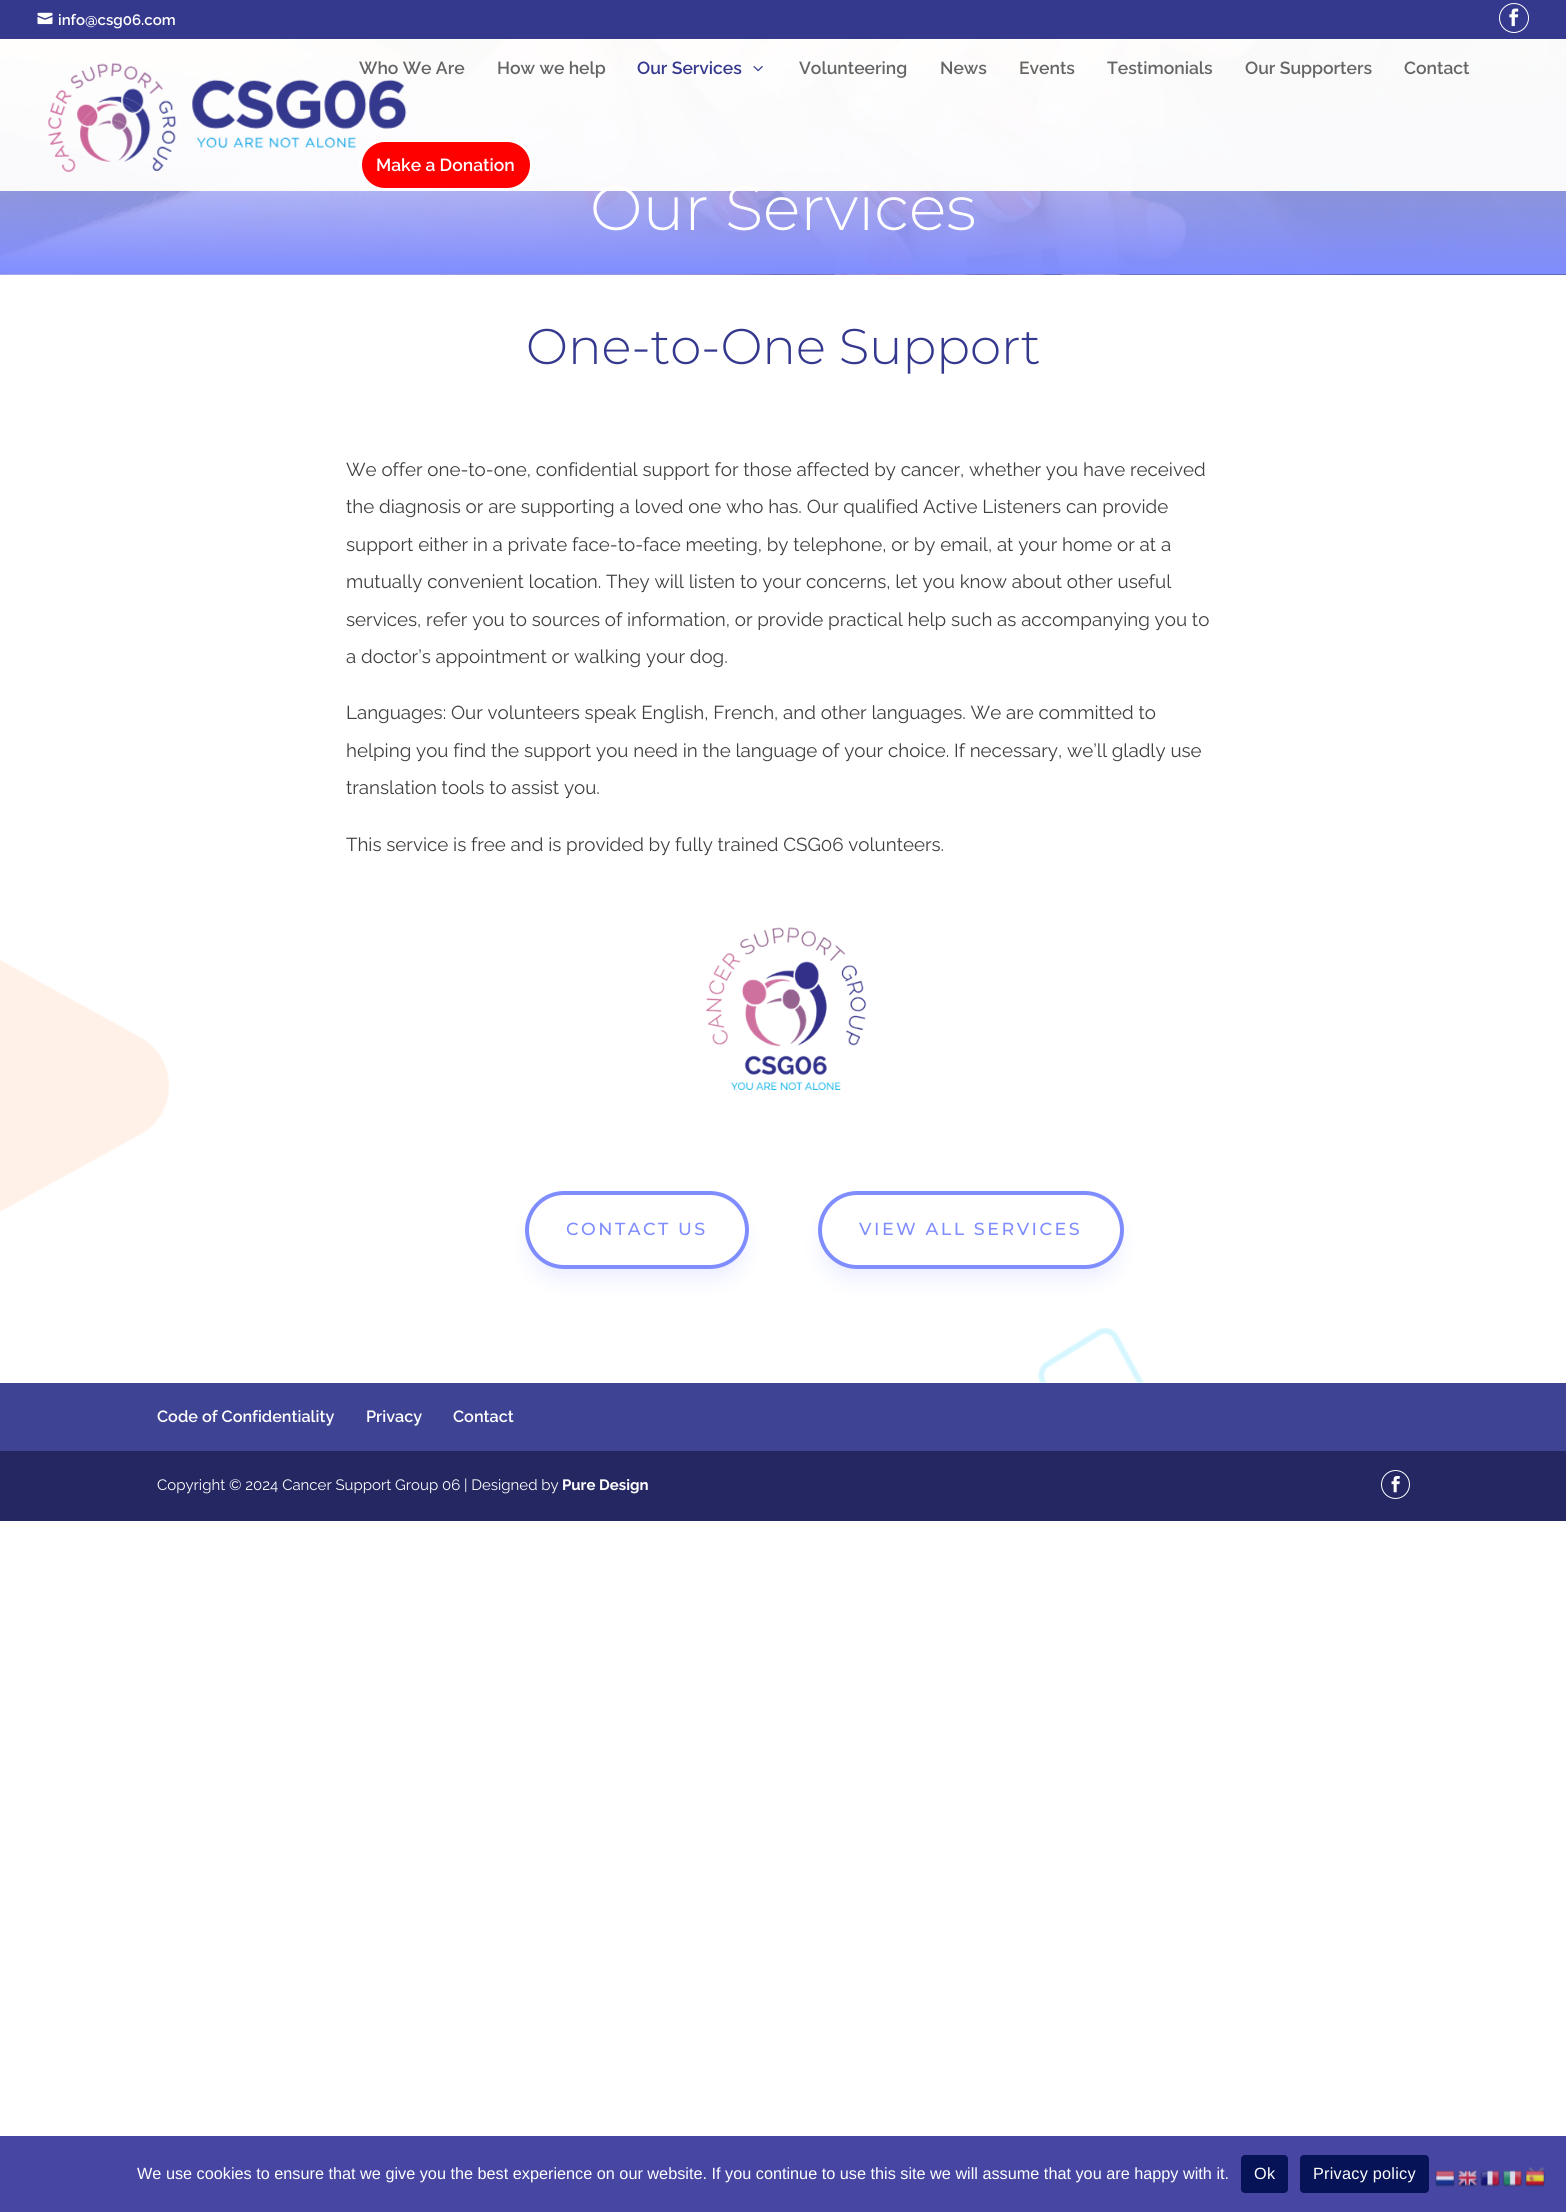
#include <cairo/cairo.h>
#include <math.h>
#include <stddef.h>


static void draw_spaced(cairo_t *cr, double x, double y, const char *s, double letter, double word) {
  cairo_move_to(cr, x, y);
  while (*s) {
    char ch[5] = {0};
    int n = 0;
    do ch[n++] = *s++; while ((*s & 0xC0) == 0x80);
    cairo_show_text(cr, ch);
    cairo_rel_move_to(cr, letter + word * (*ch == ' '), 0);
  }
}

static void rounded_rect(cairo_t *cr, double x, double y, double w, double h, double r) {
  cairo_new_sub_path(cr);
  cairo_arc(cr, x + w - r, y + h - r, r, 0, M_PI / 2);
  cairo_arc(cr, x + r, y + h - r, r, M_PI / 2, M_PI);
  cairo_arc(cr, x + r, y + r, r, M_PI, 1.5 * M_PI);
  cairo_arc(cr, x + w - r, y + r, r, 1.5 * M_PI, 2 * M_PI);
  cairo_close_path(cr);
}

static void draw_shadow(cairo_t *cr, double x, double y, double w, double h, double r, double blur, double alpha) {
  cairo_push_group_with_content(cr, CAIRO_CONTENT_ALPHA);
  cairo_set_operator(cr, CAIRO_OPERATOR_SOURCE);
  for (int i = 15; i >= -15 && fmin(w, h) + blur * i / 3 > 0; i -= 2) {
    double e = blur * i / 6;
    cairo_set_source_rgba(cr, 0, 0, 0, alpha * erfc((i - 1) / 8.5) / 2);
    rounded_rect(cr, x - e, y - e, w + 2 * e, h + 2 * e, fmax(0, fmin(r + e + blur * .6, fmin(w, h) / 2 + e)));
    cairo_fill(cr);
  }
  cairo_pattern_t *soft = cairo_pop_group(cr);
  cairo_mask(cr, soft);
  cairo_pattern_destroy(soft);
}

static void draw_image(cairo_t *cr, const char *path, double x, double y, double w, double h) {
  cairo_surface_t *image = cairo_image_surface_create_from_png(path);
  cairo_save(cr);
  cairo_set_source_surface(cr, image, x, y);
  cairo_rectangle(cr, x, y, w, h);
  cairo_fill(cr);
  cairo_restore(cr);
  cairo_surface_destroy(image);
}

static void draw(cairo_t *cr) {
  cairo_set_source_rgb(cr, 1, 1, 1);
  cairo_paint(cr);
  cairo_set_source_rgb(cr, 53 / 255.0, 57 / 255.0, 142 / 255.0);
  cairo_rectangle(cr, 0, 0, 1566, 39);
  cairo_fill(cr);
  draw_image(cr, "images/1.png", 37, 12, 16, 13);
  cairo_arc(cr, 1514, 18, 14.5, 0, 2 * M_PI);
  cairo_set_source_rgb(cr, 1, 1, 1);
  cairo_set_line_width(cr, 1);
  cairo_stroke(cr);
  draw_image(cr, "images/2.png", 1509, 8, 10, 19);
  draw_image(cr, "images/5.png", 0, 39, 1566, 236);
  draw_image(cr, "images/7.png", 0, 960, 1144, 423);
  draw_image(cr, "images/6.png", 706, 927, 160, 163);
  cairo_set_source_rgb(cr, 127 / 255.0, 141 / 255.0, 1);
  draw_shadow(cr, 533, 1214, 208, 62, 31, 11, 0.18);
  cairo_set_source_rgb(cr, 1, 1, 1);
  rounded_rect(cr, 527, 1193, 220, 74, 37);
  cairo_fill_preserve(cr);
  cairo_set_source_rgb(cr, 127 / 255.0, 141 / 255.0, 1);
  cairo_set_line_width(cr, 4);
  cairo_stroke(cr);
  cairo_set_source_rgb(cr, 127 / 255.0, 141 / 255.0, 1);
  draw_shadow(cr, 825, 1214, 291, 62, 31, 11, 0.18);
  cairo_set_source_rgb(cr, 1, 1, 1);
  rounded_rect(cr, 820, 1193, 302, 74, 37);
  cairo_fill_preserve(cr);
  cairo_set_source_rgb(cr, 127 / 255.0, 141 / 255.0, 1);
  cairo_stroke(cr);
  cairo_set_source_rgb(cr, 63 / 255.0, 67 / 255.0, 148 / 255.0);
  cairo_rectangle(cr, 0, 1383, 1566, 68);
  cairo_fill(cr);
  cairo_set_source_rgb(cr, 36 / 255.0, 39 / 255.0, 97 / 255.0);
  cairo_rectangle(cr, 0, 1451, 1566, 70);
  cairo_fill(cr);
  cairo_arc(cr, 1395.5, 1484.5, 14, 0, 2 * M_PI);
  cairo_set_source_rgb(cr, 1, 1, 1);
  cairo_set_line_width(cr, 1);
  cairo_stroke(cr);
  draw_image(cr, "images/8.png", 1391, 1476, 9, 17);
  cairo_set_source_rgb(cr, 71 / 255.0, 71 / 255.0, 163 / 255.0);
  cairo_rectangle(cr, 0, 2136, 1566, 76);
  cairo_fill(cr);
  cairo_set_source_rgb(cr, 6 / 255.0, 19 / 255.0, 86 / 255.0);
  rounded_rect(cr, 1241, 2155, 47, 38, 4);
  cairo_fill(cr);
  rounded_rect(cr, 1300, 2155, 129, 38, 4);
  cairo_fill(cr);
  cairo_set_source_rgb(cr, 100 / 255.0, 100 / 255.0, 146 / 255.0);
  cairo_new_path(cr);
  cairo_move_to(cr, 1542, 2167);
  cairo_line_to(cr, 1544, 2169);
  cairo_line_to(cr, 1530.5, 2182);
  cairo_line_to(cr, 1528.5, 2180.5);
  cairo_close_path(cr);
  cairo_fill(cr);
  cairo_new_path(cr);
  cairo_move_to(cr, 1528.5, 2169);
  cairo_line_to(cr, 1530.5, 2167);
  cairo_line_to(cr, 1544, 2180.5);
  cairo_line_to(cr, 1542, 2182);
  cairo_close_path(cr);
  cairo_fill(cr);
  draw_image(cr, "images/9.png", 1435, 2170, 20, 17);
  draw_image(cr, "images/10.png", 1457, 2170, 21, 17);
  draw_image(cr, "images/11.png", 1480, 2170, 20, 17);
  draw_image(cr, "images/12.png", 1502, 2170, 21, 17);
  draw_image(cr, "images/13.png", 1525, 2170, 20, 17);
  cairo_select_font_face(cr, "Raleway SemiBold", CAIRO_FONT_SLANT_NORMAL, CAIRO_FONT_WEIGHT_NORMAL);
  cairo_set_font_size(cr, 15);
  cairo_set_source_rgb(cr, 1, 1, 1);
  cairo_move_to(cr, 58, 25);
  cairo_show_text(cr, "info@csg06.com");
  cairo_select_font_face(cr, "Montserrat Light", CAIRO_FONT_SLANT_NORMAL, CAIRO_FONT_WEIGHT_NORMAL);
  cairo_set_font_size(cr, 62.5);
  cairo_move_to(cr, 590, 230);
  cairo_show_text(cr, "Our Services");
  cairo_set_source_rgba(cr, 1, 1, 1, 0.95);
  cairo_rectangle(cr, 0, 39, 1566, 152);
  cairo_fill(cr);
  draw_image(cr, "images/3.png", 48, 62, 359, 110);
  cairo_set_source_rgb(cr, 1, 0, 0);
  rounded_rect(cr, 360.5, 140.5, 171, 49, 24.5);
  cairo_fill_preserve(cr);
  cairo_set_source_rgb(cr, 1, 1, 1);
  cairo_set_line_width(cr, 3);
  cairo_stroke(cr);
  cairo_select_font_face(cr, "Raleway SemiBold", CAIRO_FONT_SLANT_NORMAL, CAIRO_FONT_WEIGHT_NORMAL);
  cairo_set_font_size(cr, 17.5);
  cairo_move_to(cr, 376, 171);
  cairo_show_text(cr, "Make a Donation");
  cairo_set_source_rgb(cr, 101 / 255.0, 101 / 255.0, 101 / 255.0);
  cairo_move_to(cr, 1404, 74);
  cairo_show_text(cr, "Contact");
  cairo_move_to(cr, 1245, 74);
  cairo_show_text(cr, "Our Supporters");
  cairo_move_to(cr, 1107, 74);
  cairo_show_text(cr, "Testimonials");
  cairo_move_to(cr, 1019, 74);
  cairo_show_text(cr, "Events");
  cairo_move_to(cr, 940, 74);
  cairo_show_text(cr, "News");
  cairo_move_to(cr, 799, 74);
  cairo_show_text(cr, "Volunteering");
  draw_image(cr, "images/4.png", 753, 66, 10, 6);
  cairo_set_source_rgb(cr, 53 / 255.0, 57 / 255.0, 142 / 255.0);
  cairo_move_to(cr, 637, 74);
  cairo_show_text(cr, "Our Services");
  cairo_set_source_rgb(cr, 101 / 255.0, 101 / 255.0, 101 / 255.0);
  cairo_move_to(cr, 497, 74);
  cairo_show_text(cr, "How we help");
  cairo_move_to(cr, 359, 74);
  cairo_show_text(cr, "Who We Are");
  cairo_select_font_face(cr, "Montserrat Light", CAIRO_FONT_SLANT_NORMAL, CAIRO_FONT_WEIGHT_NORMAL);
  cairo_set_font_size(cr, 50);
  cairo_set_source_rgb(cr, 53 / 255.0, 57 / 255.0, 142 / 255.0);
  cairo_move_to(cr, 526, 364);
  cairo_show_text(cr, "One-to-One Support");
  cairo_select_font_face(cr, "Raleway", CAIRO_FONT_SLANT_NORMAL, CAIRO_FONT_WEIGHT_NORMAL);
  cairo_set_font_size(cr, 18.75);
  cairo_set_source_rgb(cr, 63 / 255.0, 63 / 255.0, 63 / 255.0);
  cairo_move_to(cr, 346, 476);
  cairo_show_text(cr, "We offer one-to-one, confidential support for those affected by cancer, whether you have received");
  cairo_move_to(cr, 346, 513);
  cairo_show_text(cr, "the diagnosis or are supporting a loved one who has. Our qualified Active Listeners can provide");
  cairo_move_to(cr, 346, 551);
  cairo_show_text(cr, "support either in a private face-to-face meeting, by telephone, or by email, at your home or at a");
  cairo_move_to(cr, 346, 588);
  cairo_show_text(cr, "mutually convenient location. They will listen to your concerns, let you know about other useful");
  cairo_move_to(cr, 346, 626);
  cairo_show_text(cr, "services, refer you to sources of information, or provide practical help such as accompanying you to");
  cairo_move_to(cr, 346, 663);
  cairo_show_text(cr, "a doctor’s appointment or walking your dog.");
  cairo_move_to(cr, 346, 719);
  cairo_show_text(cr, "Languages: Our volunteers speak English, French, and other languages. We are committed to");
  cairo_move_to(cr, 346, 757);
  cairo_show_text(cr, "helping you find the support you need in the language of your choice. If necessary, we’ll gladly use");
  cairo_move_to(cr, 346, 794);
  cairo_show_text(cr, "translation tools to assist you.");
  cairo_move_to(cr, 346, 851);
  cairo_show_text(cr, "This service is free and is provided by fully trained CSG06 volunteers.");
  cairo_select_font_face(cr, "Montserrat Medium", CAIRO_FONT_SLANT_NORMAL, CAIRO_FONT_WEIGHT_NORMAL);
  cairo_set_font_size(cr, 17.5);
  cairo_set_source_rgb(cr, 127 / 255.0, 141 / 255.0, 1);
  draw_spaced(cr, 566, 1235, "CONTACT US", 2.5, 0);
  draw_spaced(cr, 859, 1235, "VIEW ALL SERVICES", 2.5, 0);
  cairo_select_font_face(cr, "Raleway SemiBold", CAIRO_FONT_SLANT_NORMAL, CAIRO_FONT_WEIGHT_NORMAL);
  cairo_set_font_size(cr, 16.25);
  cairo_set_source_rgb(cr, 1, 1, 1);
  cairo_move_to(cr, 157, 1422);
  cairo_show_text(cr, "Code of Confidentiality");
  cairo_move_to(cr, 366, 1422);
  cairo_show_text(cr, "Privacy");
  cairo_move_to(cr, 453, 1422);
  cairo_show_text(cr, "Contact");
  cairo_select_font_face(cr, "Raleway", CAIRO_FONT_SLANT_NORMAL, CAIRO_FONT_WEIGHT_NORMAL);
  cairo_set_font_size(cr, 15);
  cairo_move_to(cr, 157, 1490);
  cairo_show_text(cr, "Copyright © 2024 Cancer Support Group 06 | Designed by");
  cairo_select_font_face(cr, "Raleway", CAIRO_FONT_SLANT_NORMAL, CAIRO_FONT_WEIGHT_BOLD);
  cairo_move_to(cr, 562, 1490);
  cairo_show_text(cr, "Pure Design");
  cairo_select_font_face(cr, "Liberation Sans", CAIRO_FONT_SLANT_NORMAL, CAIRO_FONT_WEIGHT_NORMAL);
  cairo_set_font_size(cr, 16.25);
  cairo_move_to(cr, 137, 2179);
  cairo_show_text(cr, "We use cookies to ensure that we give you the best experience on our website. If you continue to use this site we will assume that you are happy with it.");
  draw_spaced(cr, 1254, 2179, "Ok", 0.25, 0);
  draw_spaced(cr, 1313, 2179, "Privacy policy", 0.25, 0);
}

int main(void) {
  cairo_surface_t *surface = cairo_image_surface_create(CAIRO_FORMAT_RGB24, 1566, 2212);
  cairo_t *cr = cairo_create(surface);
  cairo_font_options_t *options = cairo_font_options_create();
  cairo_font_options_set_hint_metrics(options, CAIRO_HINT_METRICS_OFF);
  cairo_font_options_set_hint_style(options, CAIRO_HINT_STYLE_NONE);
  cairo_set_font_options(cr, options);
  cairo_set_miter_limit(cr, 4);
  draw(cr);
  cairo_surface_write_to_png(surface, "out.png");
  cairo_font_options_destroy(options);
  cairo_destroy(cr);
  cairo_surface_destroy(surface);
  return 0;
}
